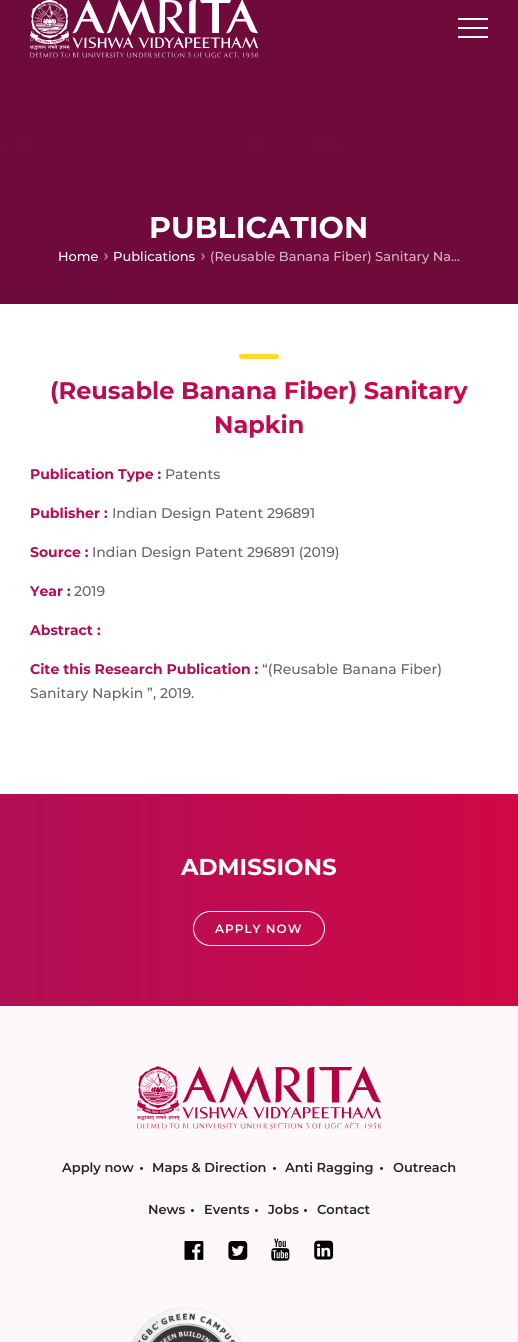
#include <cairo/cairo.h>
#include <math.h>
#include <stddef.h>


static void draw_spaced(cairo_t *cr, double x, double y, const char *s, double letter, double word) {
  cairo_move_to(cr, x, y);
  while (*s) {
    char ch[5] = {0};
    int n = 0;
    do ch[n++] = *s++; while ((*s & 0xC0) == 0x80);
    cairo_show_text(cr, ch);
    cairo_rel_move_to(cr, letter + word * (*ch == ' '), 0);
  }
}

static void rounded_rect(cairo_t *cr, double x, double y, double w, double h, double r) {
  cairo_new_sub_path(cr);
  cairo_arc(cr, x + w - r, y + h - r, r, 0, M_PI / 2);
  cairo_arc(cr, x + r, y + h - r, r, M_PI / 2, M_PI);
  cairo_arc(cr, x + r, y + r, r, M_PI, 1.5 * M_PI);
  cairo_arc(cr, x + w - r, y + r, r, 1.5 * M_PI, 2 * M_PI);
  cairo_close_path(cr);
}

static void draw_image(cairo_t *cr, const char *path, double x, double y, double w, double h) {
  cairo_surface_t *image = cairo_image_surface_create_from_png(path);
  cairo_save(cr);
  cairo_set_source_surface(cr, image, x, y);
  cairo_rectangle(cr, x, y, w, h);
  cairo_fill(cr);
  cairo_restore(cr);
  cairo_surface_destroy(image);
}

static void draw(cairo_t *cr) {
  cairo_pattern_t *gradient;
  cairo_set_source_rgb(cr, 1, 1, 1);
  cairo_paint(cr);
  draw_image(cr, "images/1.png", 0, 0, 518, 304);
  draw_image(cr, "images/2.png", 30, 0, 229, 58);
  cairo_set_source_rgb(cr, 1, 1, 1);
  cairo_rectangle(cr, 458, 18, 30, 2);
  cairo_fill(cr);
  cairo_rectangle(cr, 458, 27, 30, 2);
  cairo_fill(cr);
  cairo_rectangle(cr, 458, 36, 30, 2);
  cairo_fill(cr);
  draw_image(cr, "images/3.png", 104, 253, 4, 7);
  draw_image(cr, "images/3.png", 201, 253, 4, 7);
  cairo_set_source_rgb(cr, 1, 217 / 255.0, 42 / 255.0);
  rounded_rect(cr, 239, 354, 40, 5, 2.5);
  cairo_fill(cr);
  gradient = cairo_pattern_create_linear(0, 900, 518, 900);
  cairo_pattern_add_color_stop_rgba(gradient, 0, 177 / 255.0, 15 / 255.0, 86 / 255.0, 1);
  cairo_pattern_add_color_stop_rgba(gradient, 1, 208 / 255.0, 8 / 255.0, 70 / 255.0, 1);
  cairo_set_source(cr, gradient);
  cairo_pattern_destroy(gradient);
  cairo_rectangle(cr, 0, 794, 518, 212);
  cairo_fill(cr);
  rounded_rect(cr, 193.5, 911.5, 131, 34, 17);
  cairo_set_source_rgb(cr, 1, 1, 1);
  cairo_set_line_width(cr, 1);
  cairo_stroke(cr);
  cairo_set_source_rgb(cr, 253 / 255.0, 248 / 255.0, 249 / 255.0);
  cairo_rectangle(cr, 0, 1006, 518, 336);
  cairo_fill(cr);
  draw_image(cr, "images/4.png", 137, 1066, 244, 63);
  cairo_set_source_rgb(cr, 38 / 255.0, 38 / 255.0, 38 / 255.0);
  cairo_arc(cr, 141.5, 1168.5, 1.5, 0, 2 * M_PI);
  cairo_fill(cr);
  cairo_arc(cr, 274.5, 1168.5, 1.5, 0, 2 * M_PI);
  cairo_fill(cr);
  cairo_arc(cr, 381.5, 1168.5, 1.5, 0, 2 * M_PI);
  cairo_fill(cr);
  cairo_arc(cr, 192.5, 1210.5, 1.5, 0, 2 * M_PI);
  cairo_fill(cr);
  cairo_arc(cr, 256.5, 1210.5, 1.5, 0, 2 * M_PI);
  cairo_fill(cr);
  cairo_arc(cr, 305.5, 1210.5, 1.5, 0, 2 * M_PI);
  cairo_fill(cr);
  draw_image(cr, "images/5.png", 184, 1241, 20, 19);
  draw_image(cr, "images/6.png", 228, 1241, 20, 19);
  draw_image(cr, "images/7.png", 271, 1238, 19, 23);
  draw_image(cr, "images/8.png", 314, 1240, 20, 20);
  draw_image(cr, "images/9.png", 131, 1307, 111, 35);
  cairo_select_font_face(cr, "Montserrat", CAIRO_FONT_SLANT_NORMAL, CAIRO_FONT_WEIGHT_BOLD);
  cairo_set_font_size(cr, 30);
  cairo_set_source_rgb(cr, 1, 1, 1);
  cairo_move_to(cr, 149, 238);
  cairo_show_text(cr, "PUBLICATION");
  cairo_select_font_face(cr, "Montserrat Medium", CAIRO_FONT_SLANT_NORMAL, CAIRO_FONT_WEIGHT_NORMAL);
  cairo_set_font_size(cr, 13);
  cairo_move_to(cr, 58, 261);
  cairo_show_text(cr, "Home");
  cairo_move_to(cr, 113, 261);
  cairo_show_text(cr, "Publications");
  cairo_set_source_rgb(cr, 212 / 255.0, 182 / 255.0, 196 / 255.0);
  cairo_move_to(cr, 210, 261);
  cairo_show_text(cr, "(Reusable Banana Fiber) Sanitary Na…");
  cairo_select_font_face(cr, "Montserrat", CAIRO_FONT_SLANT_NORMAL, CAIRO_FONT_WEIGHT_BOLD);
  cairo_set_font_size(cr, 24);
  gradient = cairo_pattern_create_linear(30, 398, 488, 398);
  cairo_pattern_add_color_stop_rgba(gradient, 0.03, 177 / 255.0, 15 / 255.0, 86 / 255.0, 1);
  cairo_pattern_add_color_stop_rgba(gradient, 0.97, 208 / 255.0, 8 / 255.0, 70 / 255.0, 1);
  cairo_set_source(cr, gradient);
  cairo_pattern_destroy(gradient);
  cairo_move_to(cr, 50, 399);
  cairo_show_text(cr, "(Reusable Banana Fiber) Sanitary");
  cairo_move_to(cr, 214, 433);
  cairo_show_text(cr, "Napkin");
  cairo_set_font_size(cr, 14);
  cairo_set_source_rgb(cr, 177 / 255.0, 15 / 255.0, 86 / 255.0);
  cairo_move_to(cr, 30, 479);
  cairo_show_text(cr, "Publication Type :");
  cairo_select_font_face(cr, "Montserrat Medium", CAIRO_FONT_SLANT_NORMAL, CAIRO_FONT_WEIGHT_NORMAL);
  cairo_set_source_rgb(cr, 101 / 255.0, 101 / 255.0, 101 / 255.0);
  cairo_move_to(cr, 165, 479);
  cairo_show_text(cr, "Patents");
  cairo_select_font_face(cr, "Montserrat", CAIRO_FONT_SLANT_NORMAL, CAIRO_FONT_WEIGHT_BOLD);
  cairo_set_source_rgb(cr, 177 / 255.0, 15 / 255.0, 86 / 255.0);
  cairo_move_to(cr, 30, 518);
  cairo_show_text(cr, "Publisher :");
  cairo_select_font_face(cr, "Montserrat Medium", CAIRO_FONT_SLANT_NORMAL, CAIRO_FONT_WEIGHT_NORMAL);
  cairo_set_source_rgb(cr, 101 / 255.0, 101 / 255.0, 101 / 255.0);
  cairo_move_to(cr, 112, 518);
  cairo_show_text(cr, "Indian Design Patent 296891");
  cairo_select_font_face(cr, "Montserrat", CAIRO_FONT_SLANT_NORMAL, CAIRO_FONT_WEIGHT_BOLD);
  cairo_set_source_rgb(cr, 177 / 255.0, 15 / 255.0, 86 / 255.0);
  cairo_move_to(cr, 30, 557);
  cairo_show_text(cr, "Source :");
  cairo_select_font_face(cr, "Montserrat Medium", CAIRO_FONT_SLANT_NORMAL, CAIRO_FONT_WEIGHT_NORMAL);
  cairo_set_source_rgb(cr, 101 / 255.0, 101 / 255.0, 101 / 255.0);
  cairo_move_to(cr, 92, 557);
  cairo_show_text(cr, "Indian Design Patent 296891 (2019)");
  cairo_select_font_face(cr, "Montserrat", CAIRO_FONT_SLANT_NORMAL, CAIRO_FONT_WEIGHT_BOLD);
  cairo_set_source_rgb(cr, 177 / 255.0, 15 / 255.0, 86 / 255.0);
  cairo_move_to(cr, 30, 596);
  cairo_show_text(cr, "Year :");
  cairo_select_font_face(cr, "Montserrat Medium", CAIRO_FONT_SLANT_NORMAL, CAIRO_FONT_WEIGHT_NORMAL);
  cairo_set_source_rgb(cr, 101 / 255.0, 101 / 255.0, 101 / 255.0);
  cairo_move_to(cr, 74, 596);
  cairo_show_text(cr, "2019");
  cairo_select_font_face(cr, "Montserrat", CAIRO_FONT_SLANT_NORMAL, CAIRO_FONT_WEIGHT_BOLD);
  cairo_set_source_rgb(cr, 177 / 255.0, 15 / 255.0, 86 / 255.0);
  cairo_move_to(cr, 30, 635);
  cairo_show_text(cr, "Abstract :");
  cairo_move_to(cr, 30, 674);
  cairo_show_text(cr, "Cite this Research Publication :");
  cairo_select_font_face(cr, "Montserrat Medium", CAIRO_FONT_SLANT_NORMAL, CAIRO_FONT_WEIGHT_NORMAL);
  cairo_set_source_rgb(cr, 101 / 255.0, 101 / 255.0, 101 / 255.0);
  cairo_move_to(cr, 262, 674);
  cairo_show_text(cr, "“(Reusable Banana Fiber)");
  cairo_move_to(cr, 30, 698);
  cairo_show_text(cr, "Sanitary Napkin ”, 2019.");
  cairo_select_font_face(cr, "Montserrat", CAIRO_FONT_SLANT_NORMAL, CAIRO_FONT_WEIGHT_BOLD);
  cairo_set_font_size(cr, 23);
  cairo_set_source_rgb(cr, 1, 1, 1);
  cairo_move_to(cr, 181, 875);
  cairo_show_text(cr, "ADMISSIONS");
  cairo_select_font_face(cr, "Montserrat SemiBold", CAIRO_FONT_SLANT_NORMAL, CAIRO_FONT_WEIGHT_NORMAL);
  cairo_set_font_size(cr, 12);
  draw_spaced(cr, 215, 933, "APPLY NOW", 1, 0);
  cairo_set_font_size(cr, 13);
  cairo_set_source_rgb(cr, 38 / 255.0, 38 / 255.0, 38 / 255.0);
  cairo_move_to(cr, 62, 1172);
  cairo_show_text(cr, "Apply now");
  cairo_move_to(cr, 152, 1172);
  cairo_show_text(cr, "Maps & Direction");
  cairo_move_to(cr, 285, 1172);
  cairo_show_text(cr, "Anti Ragging");
  cairo_move_to(cr, 393, 1172);
  cairo_show_text(cr, "Outreach");
  cairo_move_to(cr, 148, 1214);
  cairo_show_text(cr, "News");
  cairo_move_to(cr, 204, 1214);
  cairo_show_text(cr, "Events");
  cairo_move_to(cr, 268, 1214);
  cairo_show_text(cr, "Jobs");
  cairo_move_to(cr, 317, 1214);
  cairo_show_text(cr, "Contact");
}

int main(void) {
  cairo_surface_t *surface = cairo_image_surface_create(CAIRO_FORMAT_RGB24, 518, 1342);
  cairo_t *cr = cairo_create(surface);
  cairo_font_options_t *options = cairo_font_options_create();
  cairo_font_options_set_hint_metrics(options, CAIRO_HINT_METRICS_OFF);
  cairo_font_options_set_hint_style(options, CAIRO_HINT_STYLE_NONE);
  cairo_set_font_options(cr, options);
  cairo_set_miter_limit(cr, 4);
  draw(cr);
  cairo_surface_write_to_png(surface, "out.png");
  cairo_font_options_destroy(options);
  cairo_destroy(cr);
  cairo_surface_destroy(surface);
  return 0;
}
